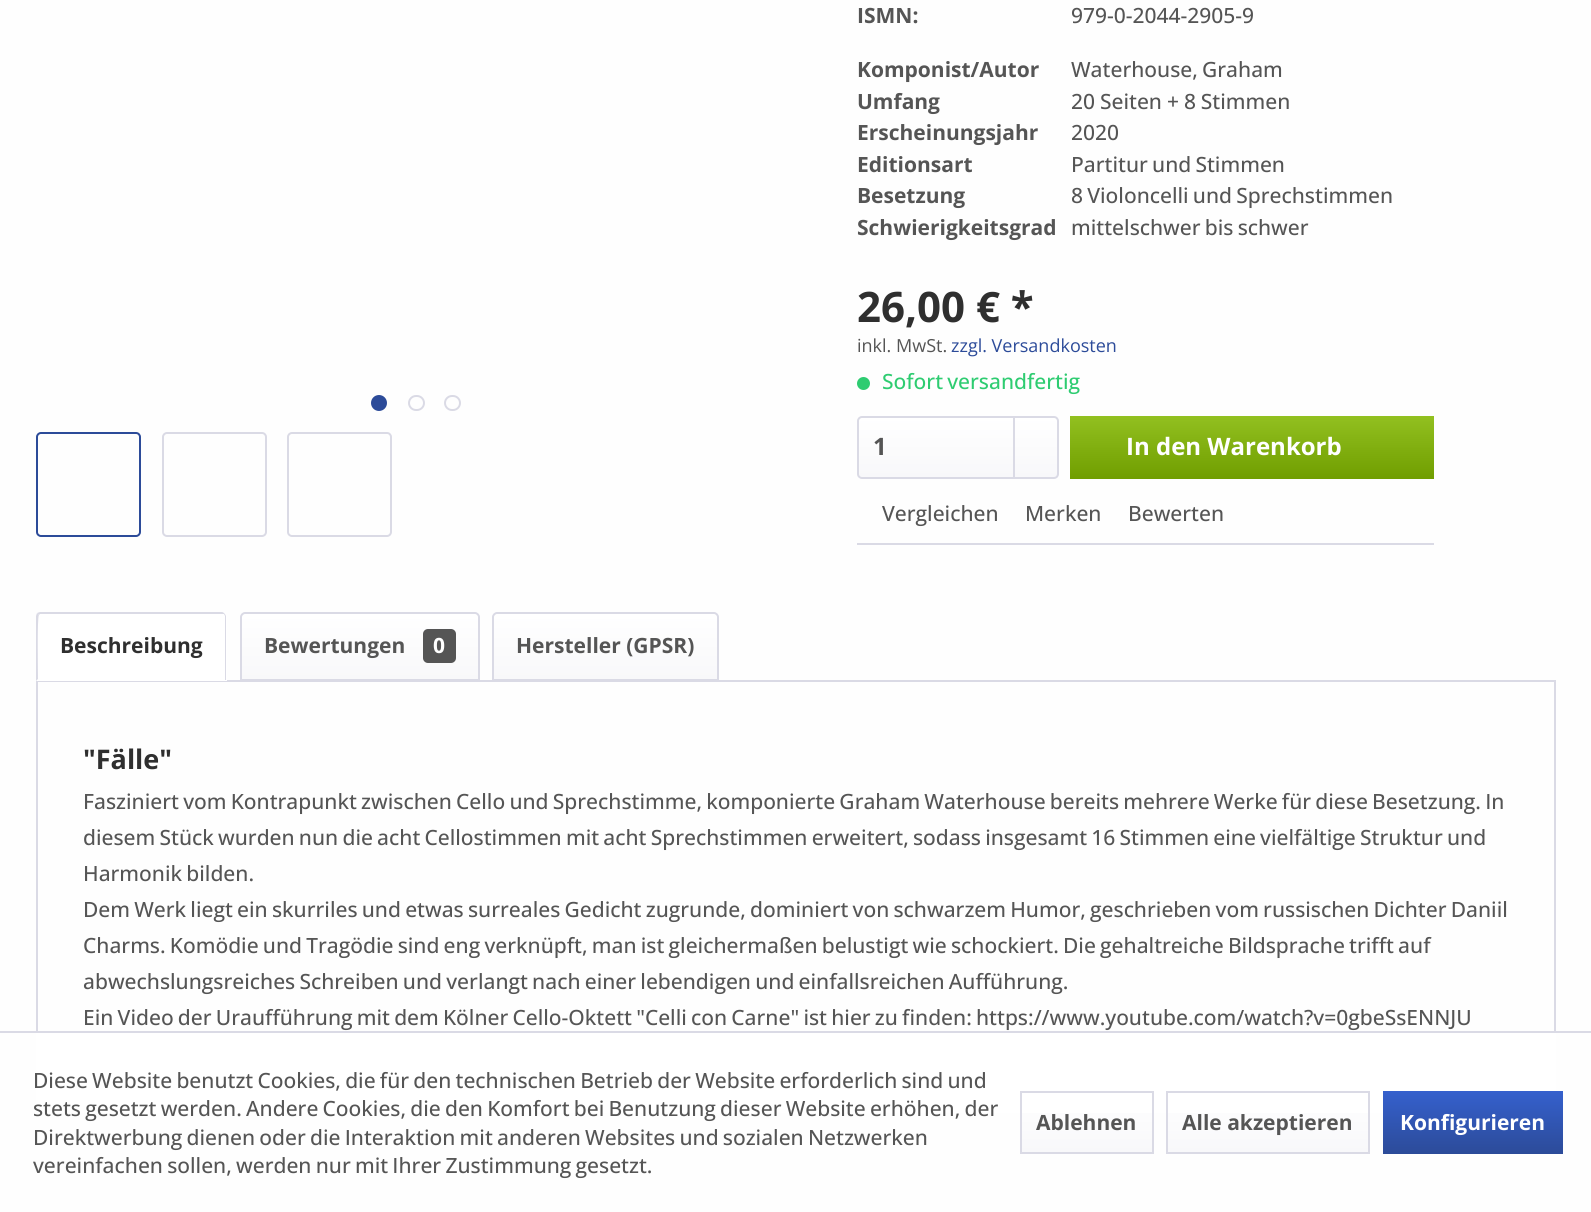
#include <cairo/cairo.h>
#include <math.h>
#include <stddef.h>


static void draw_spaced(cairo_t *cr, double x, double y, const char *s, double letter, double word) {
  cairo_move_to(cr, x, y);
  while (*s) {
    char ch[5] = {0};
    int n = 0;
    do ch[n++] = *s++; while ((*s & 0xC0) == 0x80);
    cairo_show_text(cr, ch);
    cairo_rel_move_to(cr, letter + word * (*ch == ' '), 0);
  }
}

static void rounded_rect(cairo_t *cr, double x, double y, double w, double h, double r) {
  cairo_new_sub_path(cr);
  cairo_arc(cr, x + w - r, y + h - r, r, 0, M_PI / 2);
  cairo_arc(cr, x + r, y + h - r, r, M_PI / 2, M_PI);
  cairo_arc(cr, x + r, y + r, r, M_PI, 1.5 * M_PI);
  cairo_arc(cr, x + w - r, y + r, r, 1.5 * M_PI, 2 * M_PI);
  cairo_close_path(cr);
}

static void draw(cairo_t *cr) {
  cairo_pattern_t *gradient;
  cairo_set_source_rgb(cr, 254 / 255.0, 254 / 255.0, 254 / 255.0);
  cairo_paint(cr);
  cairo_set_source_rgb(cr, 44 / 255.0, 75 / 255.0, 153 / 255.0);
  cairo_arc(cr, 379, 403, 7, 0, 2 * M_PI);
  cairo_fill_preserve(cr);
  cairo_stroke(cr);
  rounded_rect(cr, 409, 396, 15, 14, 7);
  cairo_set_source_rgb(cr, 218 / 255.0, 218 / 255.0, 229 / 255.0);
  cairo_stroke(cr);
  rounded_rect(cr, 445, 396, 15, 14, 7);
  cairo_stroke(cr);
  rounded_rect(cr, 37, 433, 103, 103, 4);
  cairo_set_source_rgb(cr, 44 / 255.0, 75 / 255.0, 153 / 255.0);
  cairo_stroke(cr);
  rounded_rect(cr, 163, 433, 103, 103, 4);
  cairo_set_source_rgb(cr, 218 / 255.0, 218 / 255.0, 229 / 255.0);
  cairo_stroke(cr);
  rounded_rect(cr, 288, 433, 103, 103, 4);
  cairo_stroke(cr);
  cairo_set_source_rgb(cr, 46 / 255.0, 204 / 255.0, 113 / 255.0);
  cairo_arc(cr, 863.5, 383.5, 6.5, 0, 2 * M_PI);
  cairo_fill(cr);
  gradient = cairo_pattern_create_linear(958, 417, 958, 477);
  cairo_pattern_add_color_stop_rgba(gradient, 0, 1, 1, 1, 1);
  cairo_pattern_add_color_stop_rgba(gradient, 1, 248 / 255.0, 248 / 255.0, 250 / 255.0, 1);
  cairo_set_source(cr, gradient);
  cairo_pattern_destroy(gradient);
  rounded_rect(cr, 858, 417, 200, 60, 3);
  cairo_fill(cr);
  rounded_rect(cr, 858, 417, 200, 61, 4);
  cairo_set_source_rgb(cr, 218 / 255.0, 218 / 255.0, 229 / 255.0);
  cairo_stroke(cr);
  cairo_rectangle(cr, 1013, 417, 2, 60);
  cairo_fill(cr);
  gradient = cairo_pattern_create_linear(1252, 416, 1252, 479);
  cairo_pattern_add_color_stop_rgba(gradient, 0, 146 / 255.0, 192 / 255.0, 32 / 255.0, 1);
  cairo_pattern_add_color_stop_rgba(gradient, 1, 112 / 255.0, 158 / 255.0, 0, 1);
  cairo_set_source(cr, gradient);
  cairo_pattern_destroy(gradient);
  cairo_rectangle(cr, 1070, 416, 364, 63);
  cairo_fill(cr);
  cairo_set_source_rgb(cr, 218 / 255.0, 218 / 255.0, 229 / 255.0);
  cairo_rectangle(cr, 857, 543, 577, 2);
  cairo_fill(cr);
  cairo_rectangle(cr, 37, 681, 1518, 431);
  cairo_stroke(cr);
  cairo_set_source_rgb(cr, 1, 1, 1);
  cairo_new_path(cr);
  cairo_move_to(cr, 41, 612);
  cairo_line_to(cr, 222, 612);
  cairo_curve_to(cr, 225, 612, 227, 614, 227, 617);
  cairo_line_to(cr, 227, 681);
  cairo_line_to(cr, 36, 681);
  cairo_line_to(cr, 36, 617);
  cairo_curve_to(cr, 36, 614, 38, 612, 41, 612);
  cairo_close_path(cr);
  cairo_fill(cr);
  cairo_set_source_rgb(cr, 218 / 255.0, 218 / 255.0, 229 / 255.0);
  cairo_new_path(cr);
  cairo_move_to(cr, 40, 612);
  cairo_line_to(cr, 37, 613);
  cairo_line_to(cr, 39, 615);
  cairo_line_to(cr, 40, 614);
  cairo_line_to(cr, 222, 614);
  cairo_line_to(cr, 224, 614);
  cairo_line_to(cr, 225, 614);
  cairo_curve_to(cr, 224, 613, 223, 612, 222, 612);
  cairo_close_path(cr);
  cairo_fill(cr);
  cairo_new_path(cr);
  cairo_move_to(cr, 225, 614);
  cairo_line_to(cr, 226, 616);
  cairo_line_to(cr, 226, 680);
  cairo_line_to(cr, 225, 680);
  cairo_line_to(cr, 225, 616);
  cairo_line_to(cr, 224, 614);
  cairo_close_path(cr);
  cairo_fill(cr);
  cairo_new_path(cr);
  cairo_move_to(cr, 36, 681);
  cairo_line_to(cr, 38, 679);
  cairo_curve_to(cr, 38, 672, 37, 616, 39, 615);
  cairo_line_to(cr, 37, 613);
  cairo_line_to(cr, 36, 616);
  cairo_close_path(cr);
  cairo_fill(cr);
  gradient = cairo_pattern_create_linear(360, 614, 360, 680);
  cairo_pattern_add_color_stop_rgba(gradient, 0, 1, 1, 1, 1);
  cairo_pattern_add_color_stop_rgba(gradient, 1, 248 / 255.0, 248 / 255.0, 250 / 255.0, 1);
  cairo_set_source(cr, gradient);
  cairo_pattern_destroy(gradient);
  cairo_new_path(cr);
  cairo_move_to(cr, 245, 614);
  cairo_line_to(cr, 476, 614);
  cairo_curve_to(cr, 477.5, 614, 479, 615.5, 479, 617);
  cairo_line_to(cr, 479, 680);
  cairo_line_to(cr, 242, 680);
  cairo_line_to(cr, 242, 617);
  cairo_curve_to(cr, 242, 615.5, 243.5, 614, 245, 614);
  cairo_close_path(cr);
  cairo_fill(cr);
  cairo_new_path(cr);
  cairo_move_to(cr, 245, 613);
  cairo_line_to(cr, 475, 613);
  cairo_curve_to(cr, 477, 613, 479, 615, 479, 617);
  cairo_line_to(cr, 479, 680);
  cairo_line_to(cr, 241, 680);
  cairo_line_to(cr, 241, 617);
  cairo_curve_to(cr, 241, 615, 243, 613, 245, 613);
  cairo_close_path(cr);
  cairo_set_source_rgb(cr, 218 / 255.0, 218 / 255.0, 229 / 255.0);
  cairo_stroke(cr);
  cairo_set_source_rgb(cr, 85 / 255.0, 85 / 255.0, 85 / 255.0);
  rounded_rect(cr, 423, 629, 33, 34, 5);
  cairo_fill(cr);
  gradient = cairo_pattern_create_linear(605, 614, 605, 680);
  cairo_pattern_add_color_stop_rgba(gradient, 0, 1, 1, 1, 1);
  cairo_pattern_add_color_stop_rgba(gradient, 1, 248 / 255.0, 248 / 255.0, 250 / 255.0, 1);
  cairo_set_source(cr, gradient);
  cairo_pattern_destroy(gradient);
  cairo_new_path(cr);
  cairo_move_to(cr, 497, 614);
  cairo_line_to(cr, 714, 614);
  cairo_curve_to(cr, 715.5, 614, 717, 615.5, 717, 617);
  cairo_line_to(cr, 717, 680);
  cairo_line_to(cr, 494, 680);
  cairo_line_to(cr, 494, 617);
  cairo_curve_to(cr, 494, 615.5, 495.5, 614, 497, 614);
  cairo_close_path(cr);
  cairo_fill(cr);
  cairo_new_path(cr);
  cairo_move_to(cr, 497, 613);
  cairo_line_to(cr, 714, 613);
  cairo_curve_to(cr, 716, 613, 718, 615, 718, 617);
  cairo_line_to(cr, 718, 680);
  cairo_line_to(cr, 493, 680);
  cairo_line_to(cr, 493, 617);
  cairo_curve_to(cr, 493, 615, 495, 613, 497, 613);
  cairo_close_path(cr);
  cairo_set_source_rgb(cr, 218 / 255.0, 218 / 255.0, 229 / 255.0);
  cairo_stroke(cr);
  cairo_set_source_rgb(cr, 1, 1, 1);
  cairo_rectangle(cr, 36, 1033, 1520, 80);
  cairo_fill(cr);
  cairo_set_source_rgb(cr, 218 / 255.0, 218 / 255.0, 229 / 255.0);
  cairo_rectangle(cr, 0, 1031, 1591, 2);
  cairo_fill(cr);
  gradient = cairo_pattern_create_linear(1087, 1092, 1087, 1152);
  cairo_pattern_add_color_stop_rgba(gradient, 0, 1, 1, 1, 1);
  cairo_pattern_add_color_stop_rgba(gradient, 1, 248 / 255.0, 248 / 255.0, 250 / 255.0, 1);
  cairo_set_source(cr, gradient);
  cairo_pattern_destroy(gradient);
  cairo_rectangle(cr, 1022, 1113, 130, 39);
  cairo_fill(cr);
  cairo_rectangle(cr, 1021, 1092, 132, 61);
  cairo_set_source_rgb(cr, 218 / 255.0, 218 / 255.0, 229 / 255.0);
  cairo_stroke(cr);
  gradient = cairo_pattern_create_linear(1268, 1092, 1268, 1152);
  cairo_pattern_add_color_stop_rgba(gradient, 0, 1, 1, 1, 1);
  cairo_pattern_add_color_stop_rgba(gradient, 1, 248 / 255.0, 248 / 255.0, 250 / 255.0, 1);
  cairo_set_source(cr, gradient);
  cairo_pattern_destroy(gradient);
  cairo_rectangle(cr, 1168, 1113, 200, 39);
  cairo_fill(cr);
  cairo_rectangle(cr, 1167, 1092, 202, 61);
  cairo_set_source_rgb(cr, 218 / 255.0, 218 / 255.0, 229 / 255.0);
  cairo_stroke(cr);
  gradient = cairo_pattern_create_linear(1473, 1091, 1473, 1154);
  cairo_pattern_add_color_stop_rgba(gradient, 0, 53 / 255.0, 96 / 255.0, 205 / 255.0, 1);
  cairo_pattern_add_color_stop_rgba(gradient, 1, 44 / 255.0, 75 / 255.0, 153 / 255.0, 1);
  cairo_set_source(cr, gradient);
  cairo_pattern_destroy(gradient);
  cairo_rectangle(cr, 1383, 1091, 180, 63);
  cairo_fill(cr);
  cairo_select_font_face(cr, "Open Sans", CAIRO_FONT_SLANT_NORMAL, CAIRO_FONT_WEIGHT_BOLD);
  cairo_set_font_size(cr, 21);
  cairo_set_source_rgb(cr, 85 / 255.0, 85 / 255.0, 85 / 255.0);
  cairo_move_to(cr, 857, 23);
  cairo_show_text(cr, "ISMN:");
  cairo_select_font_face(cr, "Open Sans Medium", CAIRO_FONT_SLANT_NORMAL, CAIRO_FONT_WEIGHT_NORMAL);
  cairo_move_to(cr, 1071, 23);
  cairo_show_text(cr, "979-0-2044-2905-9");
  cairo_select_font_face(cr, "Open Sans", CAIRO_FONT_SLANT_NORMAL, CAIRO_FONT_WEIGHT_BOLD);
  cairo_move_to(cr, 857, 77);
  cairo_show_text(cr, "Komponist/Autor");
  cairo_select_font_face(cr, "Open Sans Medium", CAIRO_FONT_SLANT_NORMAL, CAIRO_FONT_WEIGHT_NORMAL);
  draw_spaced(cr, 1071, 77, "Waterhouse, Graham", 0, -1.25);
  cairo_select_font_face(cr, "Open Sans", CAIRO_FONT_SLANT_NORMAL, CAIRO_FONT_WEIGHT_BOLD);
  cairo_move_to(cr, 857, 109);
  cairo_show_text(cr, "Umfang");
  cairo_select_font_face(cr, "Open Sans Medium", CAIRO_FONT_SLANT_NORMAL, CAIRO_FONT_WEIGHT_NORMAL);
  draw_spaced(cr, 1071, 109, "20 Seiten + 8 Stimmen", 0, -0.5);
  cairo_select_font_face(cr, "Open Sans", CAIRO_FONT_SLANT_NORMAL, CAIRO_FONT_WEIGHT_BOLD);
  cairo_move_to(cr, 857, 140);
  cairo_show_text(cr, "Erscheinungsjahr");
  cairo_select_font_face(cr, "Open Sans Medium", CAIRO_FONT_SLANT_NORMAL, CAIRO_FONT_WEIGHT_NORMAL);
  cairo_move_to(cr, 1071, 140);
  cairo_show_text(cr, "2020");
  cairo_select_font_face(cr, "Open Sans", CAIRO_FONT_SLANT_NORMAL, CAIRO_FONT_WEIGHT_BOLD);
  cairo_move_to(cr, 857, 172);
  cairo_show_text(cr, "Editionsart");
  cairo_select_font_face(cr, "Open Sans Medium", CAIRO_FONT_SLANT_NORMAL, CAIRO_FONT_WEIGHT_NORMAL);
  draw_spaced(cr, 1071, 172, "Partitur und Stimmen", 0, -1.25);
  cairo_select_font_face(cr, "Open Sans", CAIRO_FONT_SLANT_NORMAL, CAIRO_FONT_WEIGHT_BOLD);
  cairo_move_to(cr, 857, 203);
  cairo_show_text(cr, "Besetzung");
  cairo_select_font_face(cr, "Open Sans Medium", CAIRO_FONT_SLANT_NORMAL, CAIRO_FONT_WEIGHT_NORMAL);
  draw_spaced(cr, 1071, 203, "8 Violoncelli und Sprechstimmen", 0, -1.25);
  cairo_select_font_face(cr, "Open Sans", CAIRO_FONT_SLANT_NORMAL, CAIRO_FONT_WEIGHT_BOLD);
  cairo_move_to(cr, 857, 235);
  cairo_show_text(cr, "Schwierigkeitsgrad");
  cairo_select_font_face(cr, "Open Sans Medium", CAIRO_FONT_SLANT_NORMAL, CAIRO_FONT_WEIGHT_NORMAL);
  draw_spaced(cr, 1071, 235, "mittelschwer bis schwer", 0, -1.25);
  cairo_select_font_face(cr, "Open Sans", CAIRO_FONT_SLANT_NORMAL, CAIRO_FONT_WEIGHT_BOLD);
  cairo_set_font_size(cr, 42);
  cairo_set_source_rgb(cr, 47 / 255.0, 47 / 255.0, 47 / 255.0);
  cairo_move_to(cr, 857, 322);
  cairo_show_text(cr, "26,00 € *");
  cairo_select_font_face(cr, "Open Sans", CAIRO_FONT_SLANT_NORMAL, CAIRO_FONT_WEIGHT_NORMAL);
  cairo_set_font_size(cr, 18);
  cairo_set_source_rgb(cr, 85 / 255.0, 85 / 255.0, 85 / 255.0);
  cairo_move_to(cr, 857, 352);
  cairo_show_text(cr, "inkl. MwSt.");
  cairo_set_source_rgb(cr, 44 / 255.0, 75 / 255.0, 153 / 255.0);
  cairo_move_to(cr, 951, 352);
  cairo_show_text(cr, "zzgl. Versandkosten");
  cairo_select_font_face(cr, "Open Sans Medium", CAIRO_FONT_SLANT_NORMAL, CAIRO_FONT_WEIGHT_NORMAL);
  cairo_set_font_size(cr, 21);
  cairo_set_source_rgb(cr, 46 / 255.0, 204 / 255.0, 113 / 255.0);
  draw_spaced(cr, 882, 389, "Sofort versandfertig", 0, -1.25);
  cairo_select_font_face(cr, "Open Sans", CAIRO_FONT_SLANT_NORMAL, CAIRO_FONT_WEIGHT_BOLD);
  cairo_set_font_size(cr, 24);
  cairo_set_source_rgb(cr, 85 / 255.0, 85 / 255.0, 85 / 255.0);
  cairo_move_to(cr, 873, 455);
  cairo_show_text(cr, "1");
  cairo_set_source_rgb(cr, 1, 1, 1);
  cairo_move_to(cr, 1126, 455);
  cairo_show_text(cr, "In den Warenkorb");
  cairo_select_font_face(cr, "Open Sans Medium", CAIRO_FONT_SLANT_NORMAL, CAIRO_FONT_WEIGHT_NORMAL);
  cairo_set_font_size(cr, 21);
  cairo_set_source_rgb(cr, 85 / 255.0, 85 / 255.0, 85 / 255.0);
  cairo_move_to(cr, 882, 521);
  cairo_show_text(cr, "Vergleichen");
  cairo_move_to(cr, 1025, 521);
  cairo_show_text(cr, "Merken");
  cairo_move_to(cr, 1128, 521);
  cairo_show_text(cr, "Bewerten");
  cairo_select_font_face(cr, "Open Sans", CAIRO_FONT_SLANT_NORMAL, CAIRO_FONT_WEIGHT_BOLD);
  cairo_set_source_rgb(cr, 47 / 255.0, 47 / 255.0, 47 / 255.0);
  cairo_move_to(cr, 60, 653);
  cairo_show_text(cr, "Beschreibung");
  cairo_set_source_rgb(cr, 85 / 255.0, 85 / 255.0, 85 / 255.0);
  cairo_move_to(cr, 264, 653);
  cairo_show_text(cr, "Bewertungen");
  cairo_set_source_rgb(cr, 1, 1, 1);
  cairo_move_to(cr, 433, 653);
  cairo_show_text(cr, "0");
  cairo_set_source_rgb(cr, 85 / 255.0, 85 / 255.0, 85 / 255.0);
  cairo_move_to(cr, 516, 653);
  cairo_show_text(cr, "Hersteller (GPSR)");
  cairo_set_font_size(cr, 27);
  cairo_set_source_rgb(cr, 47 / 255.0, 47 / 255.0, 47 / 255.0);
  cairo_move_to(cr, 83, 769);
  cairo_show_text(cr, "\"Fälle\"");
  cairo_select_font_face(cr, "Open Sans Medium", CAIRO_FONT_SLANT_NORMAL, CAIRO_FONT_WEIGHT_NORMAL);
  cairo_set_font_size(cr, 21);
  cairo_set_source_rgb(cr, 85 / 255.0, 85 / 255.0, 85 / 255.0);
  draw_spaced(cr, 83, 809, "Fasziniert vom Kontrapunkt zwischen Cello und Sprechstimme, komponierte Graham Waterhouse bereits mehrere Werke für diese Besetzung. In", 0, -1.25);
  draw_spaced(cr, 83, 845, "diesem Stück wurden nun die acht Cellostimmen mit acht Sprechstimmen erweitert, sodass insgesamt 16 Stimmen eine vielfältige Struktur und", 0, -1.25);
  draw_spaced(cr, 83, 881, "Harmonik bilden.", 0, -1.25);
  draw_spaced(cr, 83, 917, "Dem Werk liegt ein skurriles und etwas surreales Gedicht zugrunde, dominiert von schwarzem Humor, geschrieben vom russischen Dichter Daniil", 0, -1.25);
  draw_spaced(cr, 83, 953, "Charms. Komödie und Tragödie sind eng verknüpft, man ist gleichermaßen belustigt wie schockiert. Die gehaltreiche Bildsprache trifft auf", 0, -1.25);
  draw_spaced(cr, 83, 989, "abwechslungsreiches Schreiben und verlangt nach einer lebendigen und einfallsreichen Aufführung.", 0, -1.25);
  draw_spaced(cr, 83, 1025, "Ein Video der Uraufführung mit dem Kölner Cello-Oktett \"Celli con Carne\" ist hier zu finden: https://www.youtube.com/watch?v=0gbeSsENNJU", 0, -1.25);
  draw_spaced(cr, 33, 1088, "Diese Website benutzt Cookies, die für den technischen Betrieb der Website erforderlich sind und", 0, -1.25);
  draw_spaced(cr, 33, 1116, "stets gesetzt werden. Andere Cookies, die den Komfort bei Benutzung dieser Website erhöhen, der", 0, -1.25);
  draw_spaced(cr, 33, 1145, "Direktwerbung dienen oder die Interaktion mit anderen Websites und sozialen Netzwerken", 0, -1.25);
  draw_spaced(cr, 33, 1173, "vereinfachen sollen, werden nur mit Ihrer Zustimmung gesetzt.", 0, -1.25);
  cairo_select_font_face(cr, "Open Sans", CAIRO_FONT_SLANT_NORMAL, CAIRO_FONT_WEIGHT_BOLD);
  cairo_move_to(cr, 1036, 1130);
  cairo_show_text(cr, "Ablehnen");
  cairo_move_to(cr, 1182, 1130);
  cairo_show_text(cr, "Alle akzeptieren");
  cairo_set_source_rgb(cr, 1, 1, 1);
  cairo_move_to(cr, 1400, 1130);
  cairo_show_text(cr, "Konfigurieren");
}

int main(void) {
  cairo_surface_t *surface = cairo_image_surface_create(CAIRO_FORMAT_RGB24, 1591, 1212);
  cairo_t *cr = cairo_create(surface);
  cairo_font_options_t *options = cairo_font_options_create();
  cairo_font_options_set_hint_metrics(options, CAIRO_HINT_METRICS_OFF);
  cairo_font_options_set_hint_style(options, CAIRO_HINT_STYLE_NONE);
  cairo_set_font_options(cr, options);
  cairo_set_miter_limit(cr, 4);
  draw(cr);
  cairo_surface_write_to_png(surface, "out.png");
  cairo_font_options_destroy(options);
  cairo_destroy(cr);
  cairo_surface_destroy(surface);
  return 0;
}
